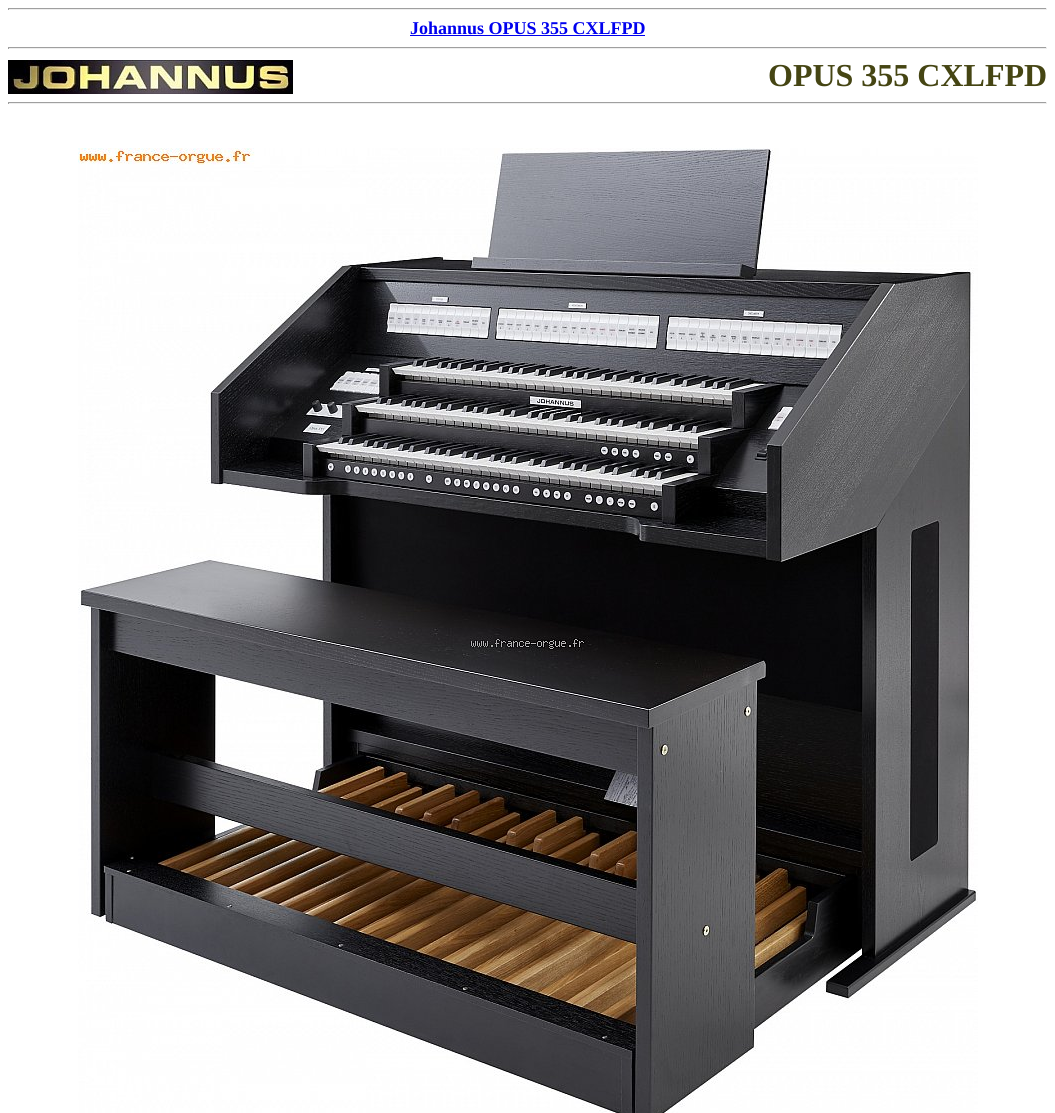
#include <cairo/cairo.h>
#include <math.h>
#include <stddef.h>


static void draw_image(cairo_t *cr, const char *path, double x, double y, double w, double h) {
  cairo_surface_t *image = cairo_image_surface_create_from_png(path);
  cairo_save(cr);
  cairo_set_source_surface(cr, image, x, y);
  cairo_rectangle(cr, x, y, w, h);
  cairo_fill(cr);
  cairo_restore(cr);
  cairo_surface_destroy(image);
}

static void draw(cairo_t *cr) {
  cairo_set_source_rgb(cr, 1, 1, 1);
  cairo_paint(cr);
  cairo_set_source_rgb(cr, 159 / 255.0, 159 / 255.0, 159 / 255.0);
  cairo_rectangle(cr, 8, 8, 1039, 1);
  cairo_fill(cr);
  cairo_set_source_rgb(cr, 238 / 255.0, 238 / 255.0, 238 / 255.0);
  cairo_rectangle(cr, 1046, 8, 1, 2);
  cairo_fill(cr);
  cairo_rectangle(cr, 8, 9, 1039, 1);
  cairo_fill(cr);
  cairo_set_source_rgb(cr, 159 / 255.0, 159 / 255.0, 159 / 255.0);
  cairo_rectangle(cr, 8, 8, 1, 2);
  cairo_fill(cr);
  cairo_set_source_rgb(cr, 0, 0, 238 / 255.0);
  cairo_rectangle(cr, 410, 35, 235, 1);
  cairo_fill(cr);
  cairo_set_source_rgb(cr, 159 / 255.0, 159 / 255.0, 159 / 255.0);
  cairo_rectangle(cr, 8, 47, 1039, 1);
  cairo_fill(cr);
  cairo_set_source_rgb(cr, 238 / 255.0, 238 / 255.0, 238 / 255.0);
  cairo_rectangle(cr, 1046, 47, 1, 2);
  cairo_fill(cr);
  cairo_rectangle(cr, 8, 48, 1039, 1);
  cairo_fill(cr);
  cairo_set_source_rgb(cr, 159 / 255.0, 159 / 255.0, 159 / 255.0);
  cairo_rectangle(cr, 8, 47, 1, 2);
  cairo_fill(cr);
  draw_image(cr, "images/1.png", 8, 60, 285, 34);
  cairo_rectangle(cr, 8, 102, 1039, 1);
  cairo_fill(cr);
  cairo_set_source_rgb(cr, 238 / 255.0, 238 / 255.0, 238 / 255.0);
  cairo_rectangle(cr, 1046, 102, 1, 2);
  cairo_fill(cr);
  cairo_rectangle(cr, 8, 103, 1039, 1);
  cairo_fill(cr);
  cairo_set_source_rgb(cr, 159 / 255.0, 159 / 255.0, 159 / 255.0);
  cairo_rectangle(cr, 8, 102, 1, 2);
  cairo_fill(cr);
  draw_image(cr, "images/2.png", 78, 148, 900, 965);
  cairo_select_font_face(cr, "Liberation Serif", CAIRO_FONT_SLANT_NORMAL, CAIRO_FONT_WEIGHT_BOLD);
  cairo_set_font_size(cr, 18);
  cairo_set_source_rgb(cr, 0, 0, 238 / 255.0);
  cairo_move_to(cr, 410, 34);
  cairo_show_text(cr, "Johannus OPUS 355 CXLFPD");
  cairo_set_font_size(cr, 32);
  cairo_set_source_rgb(cr, 69 / 255.0, 69 / 255.0, 19 / 255.0);
  cairo_move_to(cr, 768, 86);
  cairo_show_text(cr, "OPUS 355 CXLFPD");
}

int main(void) {
  cairo_surface_t *surface = cairo_image_surface_create(CAIRO_FORMAT_RGB24, 1055, 1113);
  cairo_t *cr = cairo_create(surface);
  cairo_font_options_t *options = cairo_font_options_create();
  cairo_font_options_set_hint_metrics(options, CAIRO_HINT_METRICS_OFF);
  cairo_font_options_set_hint_style(options, CAIRO_HINT_STYLE_NONE);
  cairo_set_font_options(cr, options);
  cairo_set_miter_limit(cr, 4);
  draw(cr);
  cairo_surface_write_to_png(surface, "out.png");
  cairo_font_options_destroy(options);
  cairo_destroy(cr);
  cairo_surface_destroy(surface);
  return 0;
}
